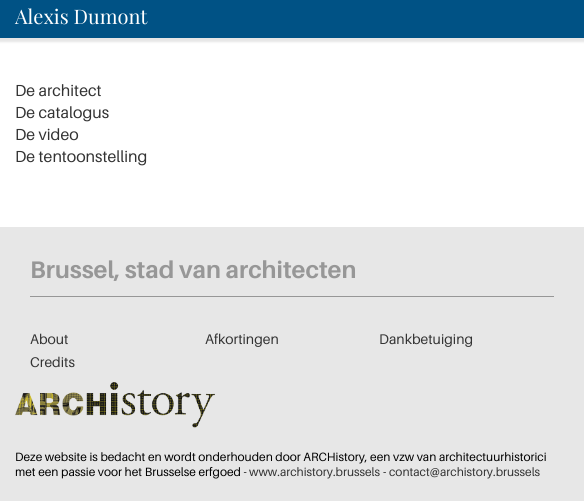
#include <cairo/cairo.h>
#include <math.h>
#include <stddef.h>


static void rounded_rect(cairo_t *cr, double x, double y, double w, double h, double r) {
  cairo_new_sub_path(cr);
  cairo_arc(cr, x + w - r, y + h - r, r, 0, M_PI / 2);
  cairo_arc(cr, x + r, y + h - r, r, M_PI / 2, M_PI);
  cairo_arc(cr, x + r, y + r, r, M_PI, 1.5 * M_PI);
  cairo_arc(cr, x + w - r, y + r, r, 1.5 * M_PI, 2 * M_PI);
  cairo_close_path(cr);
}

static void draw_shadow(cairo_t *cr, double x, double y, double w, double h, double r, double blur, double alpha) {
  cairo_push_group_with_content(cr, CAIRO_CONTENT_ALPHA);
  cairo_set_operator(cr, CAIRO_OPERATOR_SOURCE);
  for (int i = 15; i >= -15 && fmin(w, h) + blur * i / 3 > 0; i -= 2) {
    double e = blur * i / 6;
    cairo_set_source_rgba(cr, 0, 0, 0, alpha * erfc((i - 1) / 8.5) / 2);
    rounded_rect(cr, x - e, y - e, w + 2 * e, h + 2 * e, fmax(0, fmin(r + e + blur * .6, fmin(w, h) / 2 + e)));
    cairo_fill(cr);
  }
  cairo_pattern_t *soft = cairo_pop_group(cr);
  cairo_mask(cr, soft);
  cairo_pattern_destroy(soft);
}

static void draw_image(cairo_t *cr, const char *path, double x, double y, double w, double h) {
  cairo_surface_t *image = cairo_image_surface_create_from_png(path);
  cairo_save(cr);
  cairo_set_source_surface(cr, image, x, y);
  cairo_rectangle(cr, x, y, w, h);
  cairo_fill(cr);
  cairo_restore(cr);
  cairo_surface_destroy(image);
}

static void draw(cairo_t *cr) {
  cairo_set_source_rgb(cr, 1, 1, 1);
  cairo_paint(cr);
  cairo_set_source_rgb(cr, 0, 0, 0);
  draw_shadow(cr, -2, 0, 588, 42, 0, 1, 0.1);
  cairo_set_source_rgb(cr, 0, 82 / 255.0, 133 / 255.0);
  cairo_rectangle(cr, 0, 0, 584, 38);
  cairo_fill(cr);
  cairo_set_source_rgb(cr, 231 / 255.0, 231 / 255.0, 231 / 255.0);
  cairo_rectangle(cr, 0, 227, 584, 274);
  cairo_fill(cr);
  cairo_set_source_rgb(cr, 151 / 255.0, 151 / 255.0, 151 / 255.0);
  cairo_rectangle(cr, 30, 296, 524, 1);
  cairo_fill(cr);
  draw_image(cr, "images/1.png", 15, 382, 200, 46);
  cairo_select_font_face(cr, "Playfair Display", CAIRO_FONT_SLANT_NORMAL, CAIRO_FONT_WEIGHT_NORMAL);
  cairo_set_font_size(cr, 20);
  cairo_set_source_rgb(cr, 1, 1, 1);
  cairo_move_to(cr, 15, 24);
  cairo_show_text(cr, "Alexis Dumont");
  cairo_select_font_face(cr, "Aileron", CAIRO_FONT_SLANT_NORMAL, CAIRO_FONT_WEIGHT_NORMAL);
  cairo_set_font_size(cr, 16);
  cairo_set_source_rgb(cr, 51 / 255.0, 51 / 255.0, 51 / 255.0);
  cairo_move_to(cr, 15, 96);
  cairo_show_text(cr, "De architect");
  cairo_move_to(cr, 15, 118);
  cairo_show_text(cr, "De catalogus");
  cairo_move_to(cr, 15, 140);
  cairo_show_text(cr, "De video");
  cairo_move_to(cr, 15, 162);
  cairo_show_text(cr, "De tentoonstelling");
  cairo_select_font_face(cr, "Aileron", CAIRO_FONT_SLANT_NORMAL, CAIRO_FONT_WEIGHT_BOLD);
  cairo_set_font_size(cr, 24);
  cairo_set_source_rgb(cr, 151 / 255.0, 151 / 255.0, 151 / 255.0);
  cairo_move_to(cr, 30, 278);
  cairo_show_text(cr, "Brussel, stad van architecten");
  cairo_select_font_face(cr, "Aileron", CAIRO_FONT_SLANT_NORMAL, CAIRO_FONT_WEIGHT_NORMAL);
  cairo_set_font_size(cr, 14);
  cairo_set_source_rgb(cr, 51 / 255.0, 51 / 255.0, 51 / 255.0);
  cairo_move_to(cr, 30, 344);
  cairo_show_text(cr, "About");
  cairo_move_to(cr, 205, 344);
  cairo_show_text(cr, "Afkortingen");
  cairo_move_to(cr, 379, 344);
  cairo_show_text(cr, "Dankbetuiging");
  cairo_move_to(cr, 30, 367);
  cairo_show_text(cr, "Credits");
  cairo_set_font_size(cr, 12);
  cairo_set_source_rgb(cr, 0, 0, 0);
  cairo_move_to(cr, 15, 461);
  cairo_show_text(cr, "Deze website is bedacht en wordt onderhouden door ARCHistory, een vzw van architectuurhistorici");
  cairo_move_to(cr, 15, 476);
  cairo_show_text(cr, "met een passie voor het Brusselse erfgoed -");
  cairo_set_source_rgb(cr, 51 / 255.0, 51 / 255.0, 51 / 255.0);
  cairo_move_to(cr, 249, 476);
  cairo_show_text(cr, "www.archistory.brussels");
  cairo_set_source_rgb(cr, 0, 0, 0);
  cairo_move_to(cr, 383, 476);
  cairo_show_text(cr, "-");
  cairo_set_source_rgb(cr, 51 / 255.0, 51 / 255.0, 51 / 255.0);
  cairo_move_to(cr, 389, 476);
  cairo_show_text(cr, "contact@archistory.brussels");
}

int main(void) {
  cairo_surface_t *surface = cairo_image_surface_create(CAIRO_FORMAT_RGB24, 584, 501);
  cairo_t *cr = cairo_create(surface);
  cairo_font_options_t *options = cairo_font_options_create();
  cairo_font_options_set_hint_metrics(options, CAIRO_HINT_METRICS_OFF);
  cairo_font_options_set_hint_style(options, CAIRO_HINT_STYLE_NONE);
  cairo_set_font_options(cr, options);
  cairo_set_miter_limit(cr, 4);
  draw(cr);
  cairo_surface_write_to_png(surface, "out.png");
  cairo_font_options_destroy(options);
  cairo_destroy(cr);
  cairo_surface_destroy(surface);
  return 0;
}
